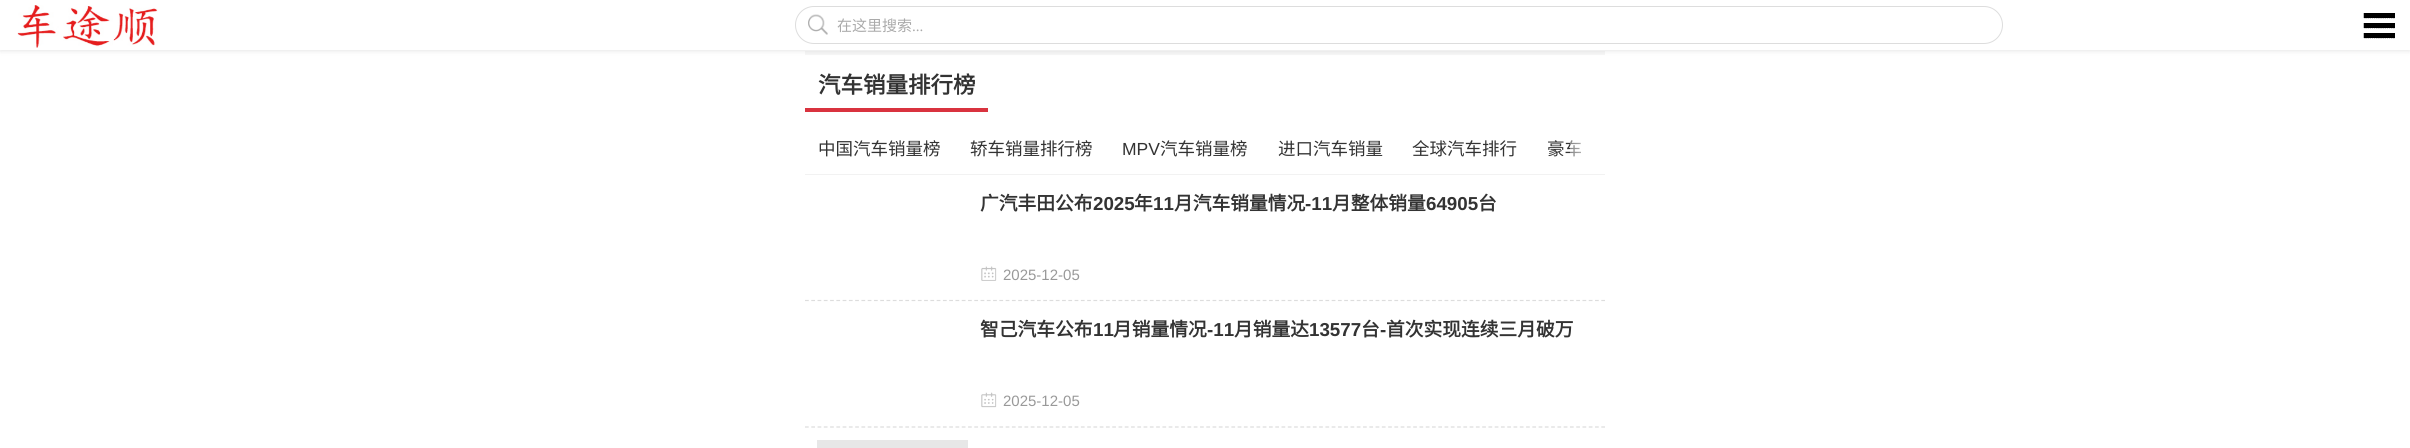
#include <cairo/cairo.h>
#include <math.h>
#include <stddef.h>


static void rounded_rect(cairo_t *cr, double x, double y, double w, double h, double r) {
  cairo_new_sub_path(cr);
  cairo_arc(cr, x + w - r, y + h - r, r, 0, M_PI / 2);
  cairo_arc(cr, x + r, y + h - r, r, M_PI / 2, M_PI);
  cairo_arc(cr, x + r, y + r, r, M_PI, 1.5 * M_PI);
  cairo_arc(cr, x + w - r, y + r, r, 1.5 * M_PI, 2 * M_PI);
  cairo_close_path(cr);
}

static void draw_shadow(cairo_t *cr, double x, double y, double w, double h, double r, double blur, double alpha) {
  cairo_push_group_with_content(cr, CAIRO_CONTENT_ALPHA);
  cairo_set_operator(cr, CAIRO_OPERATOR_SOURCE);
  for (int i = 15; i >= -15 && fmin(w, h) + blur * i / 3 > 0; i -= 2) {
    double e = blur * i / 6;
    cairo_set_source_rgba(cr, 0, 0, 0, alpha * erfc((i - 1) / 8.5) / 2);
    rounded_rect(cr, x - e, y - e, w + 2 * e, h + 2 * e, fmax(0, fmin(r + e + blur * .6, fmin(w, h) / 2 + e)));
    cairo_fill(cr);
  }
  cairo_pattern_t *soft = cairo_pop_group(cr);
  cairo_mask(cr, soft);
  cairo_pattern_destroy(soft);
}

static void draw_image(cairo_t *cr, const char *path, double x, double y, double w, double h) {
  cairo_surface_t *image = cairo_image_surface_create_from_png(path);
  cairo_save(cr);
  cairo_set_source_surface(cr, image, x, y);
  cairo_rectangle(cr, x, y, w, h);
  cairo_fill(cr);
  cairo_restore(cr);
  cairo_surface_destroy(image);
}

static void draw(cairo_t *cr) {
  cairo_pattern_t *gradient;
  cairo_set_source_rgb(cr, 1, 1, 1);
  cairo_paint(cr);
  cairo_set_source_rgb(cr, 246 / 255.0, 246 / 255.0, 246 / 255.0);
  cairo_rectangle(cr, 805, 51, 800, 4);
  cairo_fill(cr);
  cairo_set_source_rgb(cr, 0, 0, 0);
  draw_shadow(cr, 0, 1, 2410, 50, 0, 2.5, 0.1);
  cairo_set_source_rgb(cr, 1, 1, 1);
  cairo_rectangle(cr, 0, 0, 2410, 50);
  cairo_fill(cr);
  draw_image(cr, "images/1.png", 17, 5, 141, 43);
  rounded_rect(cr, 795.5, 6.5, 1207, 37, 18.5);
  cairo_set_source_rgb(cr, 221 / 255.0, 221 / 255.0, 221 / 255.0);
  cairo_set_line_width(cr, 1);
  cairo_stroke(cr);
  draw_image(cr, "images/2.png", 808, 14, 20, 21);
  draw_image(cr, "images/3.png", 2363, 13, 32, 26);
  cairo_set_source_rgb(cr, 217 / 255.0, 51 / 255.0, 63 / 255.0);
  cairo_rectangle(cr, 805, 108, 183, 4);
  cairo_fill(cr);
  cairo_set_source_rgb(cr, 242 / 255.0, 242 / 255.0, 242 / 255.0);
  cairo_rectangle(cr, 805, 174, 800, 1);
  cairo_fill(cr);
  cairo_new_path(cr);
  cairo_move_to(cr, 805, 300.5);
  cairo_line_to(cr, 1605, 300.5);
  cairo_set_source_rgb(cr, 221 / 255.0, 221 / 255.0, 221 / 255.0);
  cairo_set_line_width(cr, 1.2);
  cairo_set_dash(cr, (double[]){3.75, 2.52}, 2, 0);
  cairo_stroke(cr);
  draw_image(cr, "images/4.png", 981, 266, 16, 15);
  cairo_new_path(cr);
  cairo_move_to(cr, 805, 427);
  cairo_line_to(cr, 1605, 427);
  cairo_stroke(cr);
  draw_image(cr, "images/5.png", 981, 392, 16, 16);
  cairo_set_source_rgb(cr, 231 / 255.0, 231 / 255.0, 231 / 255.0);
  cairo_rectangle(cr, 817, 440, 151, 8);
  cairo_fill(cr);
  cairo_select_font_face(cr, "Noto Sans CJK SC", CAIRO_FONT_SLANT_NORMAL, CAIRO_FONT_WEIGHT_NORMAL);
  cairo_set_font_size(cr, 15);
  cairo_set_source_rgb(cr, 170 / 255.0, 170 / 255.0, 170 / 255.0);
  cairo_move_to(cr, 837, 31);
  cairo_show_text(cr, "在这里搜索");
  cairo_select_font_face(cr, "Liberation Serif", CAIRO_FONT_SLANT_NORMAL, CAIRO_FONT_WEIGHT_NORMAL);
  cairo_move_to(cr, 912, 31);
  cairo_show_text(cr, "...");
  cairo_select_font_face(cr, "Noto Sans CJK SC", CAIRO_FONT_SLANT_NORMAL, CAIRO_FONT_WEIGHT_BOLD);
  cairo_set_font_size(cr, 22.5);
  cairo_set_source_rgb(cr, 51 / 255.0, 51 / 255.0, 51 / 255.0);
  cairo_move_to(cr, 818, 93);
  cairo_show_text(cr, "汽车销量排行榜");
  cairo_select_font_face(cr, "Noto Sans CJK SC", CAIRO_FONT_SLANT_NORMAL, CAIRO_FONT_WEIGHT_NORMAL);
  cairo_set_font_size(cr, 17.5);
  cairo_move_to(cr, 818, 155);
  cairo_show_text(cr, "中国汽车销量榜");
  cairo_move_to(cr, 970, 155);
  cairo_show_text(cr, "轿车销量排行榜");
  cairo_select_font_face(cr, "Liberation Sans", CAIRO_FONT_SLANT_NORMAL, CAIRO_FONT_WEIGHT_NORMAL);
  cairo_move_to(cr, 1122, 155);
  cairo_show_text(cr, "MPV");
  cairo_select_font_face(cr, "Noto Sans CJK SC", CAIRO_FONT_SLANT_NORMAL, CAIRO_FONT_WEIGHT_NORMAL);
  cairo_move_to(cr, 1160, 155);
  cairo_show_text(cr, "汽车销量榜");
  cairo_move_to(cr, 1278, 155);
  cairo_show_text(cr, "进口汽车销量");
  cairo_move_to(cr, 1412, 155);
  cairo_show_text(cr, "全球汽车排行");
  cairo_move_to(cr, 1547, 155);
  cairo_show_text(cr, "豪车");
  gradient = cairo_pattern_create_linear(1570, 149, 1605, 149);
  cairo_pattern_add_color_stop_rgba(gradient, 0, 1, 1, 1, 0.4);
  cairo_pattern_add_color_stop_rgba(gradient, 1, 1, 1, 1, 1);
  cairo_set_source(cr, gradient);
  cairo_pattern_destroy(gradient);
  cairo_rectangle(cr, 1570, 140, 12, 17);
  cairo_fill(cr);
  cairo_select_font_face(cr, "Noto Sans CJK SC", CAIRO_FONT_SLANT_NORMAL, CAIRO_FONT_WEIGHT_BOLD);
  cairo_set_font_size(cr, 18.75);
  cairo_set_source_rgb(cr, 51 / 255.0, 51 / 255.0, 51 / 255.0);
  cairo_move_to(cr, 980, 210);
  cairo_show_text(cr, "广汽丰田公布");
  cairo_select_font_face(cr, "Liberation Sans", CAIRO_FONT_SLANT_NORMAL, CAIRO_FONT_WEIGHT_BOLD);
  cairo_move_to(cr, 1093, 210);
  cairo_show_text(cr, "2025");
  cairo_select_font_face(cr, "Noto Sans CJK SC", CAIRO_FONT_SLANT_NORMAL, CAIRO_FONT_WEIGHT_BOLD);
  cairo_move_to(cr, 1134, 210);
  cairo_show_text(cr, "年");
  cairo_select_font_face(cr, "Liberation Sans", CAIRO_FONT_SLANT_NORMAL, CAIRO_FONT_WEIGHT_BOLD);
  cairo_move_to(cr, 1153, 210);
  cairo_show_text(cr, "11");
  cairo_select_font_face(cr, "Noto Sans CJK SC", CAIRO_FONT_SLANT_NORMAL, CAIRO_FONT_WEIGHT_BOLD);
  cairo_move_to(cr, 1174, 210);
  cairo_show_text(cr, "月汽车销量情况");
  cairo_select_font_face(cr, "Liberation Sans", CAIRO_FONT_SLANT_NORMAL, CAIRO_FONT_WEIGHT_BOLD);
  cairo_move_to(cr, 1305, 210);
  cairo_show_text(cr, "-11");
  cairo_select_font_face(cr, "Noto Sans CJK SC", CAIRO_FONT_SLANT_NORMAL, CAIRO_FONT_WEIGHT_BOLD);
  cairo_move_to(cr, 1332, 210);
  cairo_show_text(cr, "月整体销量");
  cairo_select_font_face(cr, "Liberation Sans", CAIRO_FONT_SLANT_NORMAL, CAIRO_FONT_WEIGHT_BOLD);
  cairo_move_to(cr, 1426, 210);
  cairo_show_text(cr, "64905");
  cairo_select_font_face(cr, "Noto Sans CJK SC", CAIRO_FONT_SLANT_NORMAL, CAIRO_FONT_WEIGHT_BOLD);
  cairo_move_to(cr, 1478, 210);
  cairo_show_text(cr, "台");
  cairo_select_font_face(cr, "Liberation Sans", CAIRO_FONT_SLANT_NORMAL, CAIRO_FONT_WEIGHT_NORMAL);
  cairo_set_font_size(cr, 15);
  cairo_set_source_rgb(cr, 153 / 255.0, 153 / 255.0, 153 / 255.0);
  cairo_move_to(cr, 1003, 280);
  cairo_show_text(cr, "2025-12-05");
  cairo_select_font_face(cr, "Noto Sans CJK SC", CAIRO_FONT_SLANT_NORMAL, CAIRO_FONT_WEIGHT_BOLD);
  cairo_set_font_size(cr, 18.75);
  cairo_set_source_rgb(cr, 51 / 255.0, 51 / 255.0, 51 / 255.0);
  cairo_move_to(cr, 980, 336);
  cairo_show_text(cr, "智己汽车公布");
  cairo_select_font_face(cr, "Liberation Sans", CAIRO_FONT_SLANT_NORMAL, CAIRO_FONT_WEIGHT_BOLD);
  cairo_move_to(cr, 1093, 336);
  cairo_show_text(cr, "11");
  cairo_select_font_face(cr, "Noto Sans CJK SC", CAIRO_FONT_SLANT_NORMAL, CAIRO_FONT_WEIGHT_BOLD);
  cairo_move_to(cr, 1113, 336);
  cairo_show_text(cr, "月销量情况");
  cairo_select_font_face(cr, "Liberation Sans", CAIRO_FONT_SLANT_NORMAL, CAIRO_FONT_WEIGHT_BOLD);
  cairo_move_to(cr, 1207, 336);
  cairo_show_text(cr, "-11");
  cairo_select_font_face(cr, "Noto Sans CJK SC", CAIRO_FONT_SLANT_NORMAL, CAIRO_FONT_WEIGHT_BOLD);
  cairo_move_to(cr, 1234, 336);
  cairo_show_text(cr, "月销量达");
  cairo_select_font_face(cr, "Liberation Sans", CAIRO_FONT_SLANT_NORMAL, CAIRO_FONT_WEIGHT_BOLD);
  cairo_move_to(cr, 1309, 336);
  cairo_show_text(cr, "13577");
  cairo_select_font_face(cr, "Noto Sans CJK SC", CAIRO_FONT_SLANT_NORMAL, CAIRO_FONT_WEIGHT_BOLD);
  cairo_move_to(cr, 1361, 336);
  cairo_show_text(cr, "台");
  cairo_select_font_face(cr, "Liberation Sans", CAIRO_FONT_SLANT_NORMAL, CAIRO_FONT_WEIGHT_BOLD);
  cairo_move_to(cr, 1380, 336);
  cairo_show_text(cr, "-");
  cairo_select_font_face(cr, "Noto Sans CJK SC", CAIRO_FONT_SLANT_NORMAL, CAIRO_FONT_WEIGHT_BOLD);
  cairo_move_to(cr, 1386, 336);
  cairo_show_text(cr, "首次实现连续三月破万");
  cairo_select_font_face(cr, "Liberation Sans", CAIRO_FONT_SLANT_NORMAL, CAIRO_FONT_WEIGHT_NORMAL);
  cairo_set_font_size(cr, 15);
  cairo_set_source_rgb(cr, 153 / 255.0, 153 / 255.0, 153 / 255.0);
  cairo_move_to(cr, 1003, 406);
  cairo_show_text(cr, "2025-12-05");
}

int main(void) {
  cairo_surface_t *surface = cairo_image_surface_create(CAIRO_FORMAT_RGB24, 2410, 448);
  cairo_t *cr = cairo_create(surface);
  cairo_font_options_t *options = cairo_font_options_create();
  cairo_font_options_set_hint_metrics(options, CAIRO_HINT_METRICS_OFF);
  cairo_font_options_set_hint_style(options, CAIRO_HINT_STYLE_NONE);
  cairo_set_font_options(cr, options);
  cairo_set_miter_limit(cr, 4);
  draw(cr);
  cairo_surface_write_to_png(surface, "out.png");
  cairo_font_options_destroy(options);
  cairo_destroy(cr);
  cairo_surface_destroy(surface);
  return 0;
}
